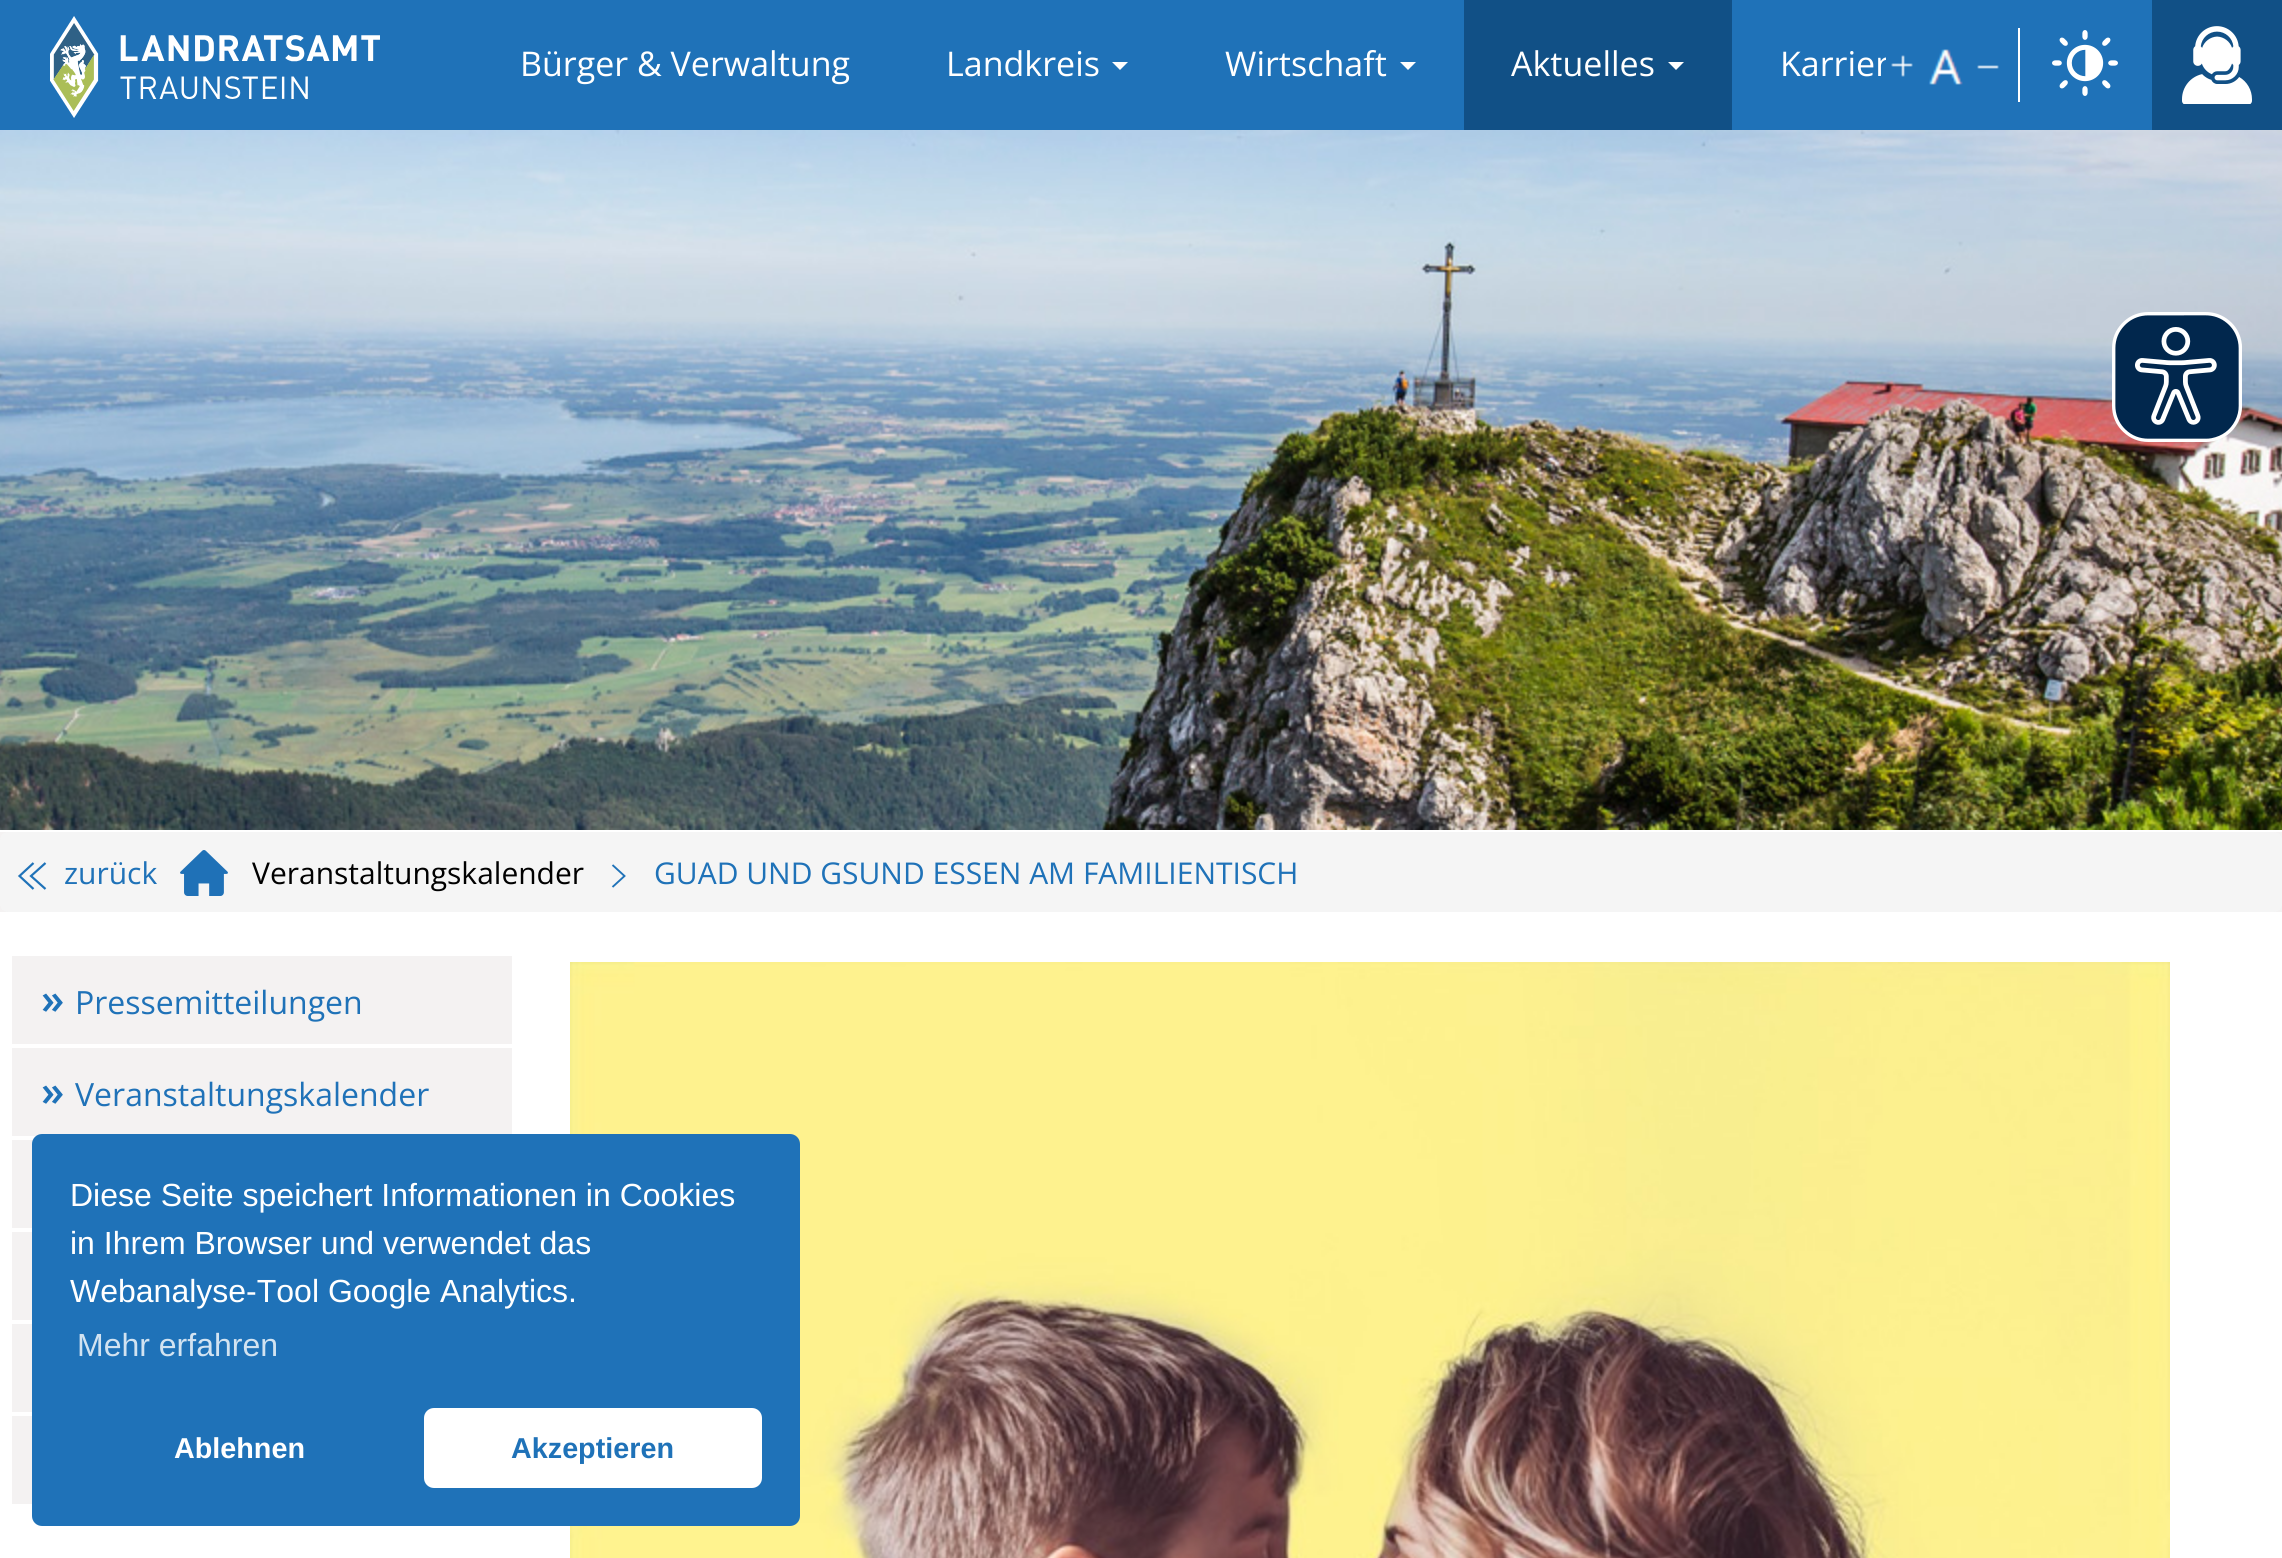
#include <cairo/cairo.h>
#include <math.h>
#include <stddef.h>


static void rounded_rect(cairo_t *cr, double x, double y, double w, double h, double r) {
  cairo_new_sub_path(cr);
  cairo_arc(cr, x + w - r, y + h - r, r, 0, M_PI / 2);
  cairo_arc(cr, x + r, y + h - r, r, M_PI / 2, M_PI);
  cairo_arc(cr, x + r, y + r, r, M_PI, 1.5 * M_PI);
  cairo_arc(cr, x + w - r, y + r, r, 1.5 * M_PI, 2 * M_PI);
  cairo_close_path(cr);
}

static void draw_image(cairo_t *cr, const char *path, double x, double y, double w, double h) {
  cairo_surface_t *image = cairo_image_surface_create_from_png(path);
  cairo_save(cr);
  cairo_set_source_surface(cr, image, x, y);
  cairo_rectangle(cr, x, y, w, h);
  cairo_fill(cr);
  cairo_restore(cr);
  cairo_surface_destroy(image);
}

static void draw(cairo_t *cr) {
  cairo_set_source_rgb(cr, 1, 1, 1);
  cairo_paint(cr);
  cairo_set_source_rgb(cr, 31 / 255.0, 114 / 255.0, 184 / 255.0);
  cairo_rectangle(cr, 0, 0, 2152, 130);
  cairo_fill(cr);
  draw_image(cr, "images/1.png", 50, 16, 330, 102);
  cairo_set_source_rgb(cr, 1, 1, 1);
  cairo_new_path(cr);
  cairo_move_to(cr, 1112, 62);
  cairo_line_to(cr, 1128, 62);
  cairo_line_to(cr, 1120, 70);
  cairo_close_path(cr);
  cairo_fill(cr);
  cairo_new_path(cr);
  cairo_move_to(cr, 1400, 62);
  cairo_line_to(cr, 1416, 62);
  cairo_line_to(cr, 1408, 70);
  cairo_close_path(cr);
  cairo_fill(cr);
  cairo_set_source_rgb(cr, 17 / 255.0, 80 / 255.0, 134 / 255.0);
  cairo_rectangle(cr, 1464, 0, 268, 130);
  cairo_fill(cr);
  cairo_set_source_rgb(cr, 1, 1, 1);
  cairo_new_path(cr);
  cairo_move_to(cr, 1668, 62);
  cairo_line_to(cr, 1684, 62);
  cairo_line_to(cr, 1676, 70);
  cairo_close_path(cr);
  cairo_fill(cr);
  cairo_rectangle(cr, 2018, 28, 2, 74);
  cairo_fill(cr);
  draw_image(cr, "images/3.png", 1928, 49, 35, 36);
  draw_image(cr, "images/4.png", 1977, 65, 22, 4);
  draw_image(cr, "images/5.png", 2052, 30, 66, 66);
  cairo_set_source_rgb(cr, 17 / 255.0, 80 / 255.0, 134 / 255.0);
  cairo_rectangle(cr, 2152, 0, 130, 130);
  cairo_fill(cr);
  draw_image(cr, "images/6.png", 2182, 26, 70, 78);
  draw_image(cr, "images/7.png", 0, 130, 2282, 700);
  cairo_set_source_rgb(cr, 244 / 255.0, 242 / 255.0, 242 / 255.0);
  cairo_rectangle(cr, 0, 832, 2282, 80);
  cairo_fill(cr);
  cairo_set_source_rgb(cr, 245 / 255.0, 245 / 255.0, 245 / 255.0);
  rounded_rect(cr, 0, 832, 2282, 80, 8);
  cairo_fill(cr);
  cairo_new_path(cr);
  cairo_move_to(cr, 45.5, 863);
  cairo_line_to(cr, 31, 876);
  cairo_line_to(cr, 45.5, 889);
  cairo_move_to(cr, 33.5, 863);
  cairo_line_to(cr, 19.5, 876);
  cairo_line_to(cr, 33.5, 889);
  cairo_set_source_rgb(cr, 31 / 255.0, 114 / 255.0, 184 / 255.0);
  cairo_set_line_width(cr, 2.2);
  cairo_stroke(cr);
  draw_image(cr, "images/8.png", 180, 850, 48, 46);
  cairo_new_path(cr);
  cairo_move_to(cr, 612.5, 887);
  cairo_line_to(cr, 624.5, 876);
  cairo_line_to(cr, 612.5, 865);
  cairo_set_line_width(cr, 1.9);
  cairo_stroke(cr);
  cairo_set_source_rgb(cr, 244 / 255.0, 242 / 255.0, 242 / 255.0);
  cairo_rectangle(cr, 12, 956, 500, 88);
  cairo_fill(cr);
  cairo_rectangle(cr, 12, 1048, 500, 88);
  cairo_fill(cr);
  cairo_rectangle(cr, 12, 1140, 21, 88);
  cairo_fill(cr);
  cairo_rectangle(cr, 12, 1232, 20, 88);
  cairo_fill(cr);
  cairo_rectangle(cr, 12, 1324, 20, 88);
  cairo_fill(cr);
  cairo_rectangle(cr, 12, 1416, 20, 88);
  cairo_fill(cr);
  draw_image(cr, "images/9.png", 570, 962, 1600, 596);
  draw_image(cr, "images/10.png", 2112, 312, 130, 130);
  cairo_set_source_rgb(cr, 31 / 255.0, 114 / 255.0, 184 / 255.0);
  rounded_rect(cr, 32, 1134, 768, 392, 10);
  cairo_fill(cr);
  cairo_set_source_rgb(cr, 1, 1, 1);
  rounded_rect(cr, 424, 1408, 338, 80, 10);
  cairo_fill(cr);
  cairo_select_font_face(cr, "Open Sans", CAIRO_FONT_SLANT_NORMAL, CAIRO_FONT_WEIGHT_NORMAL);
  cairo_set_font_size(cr, 34);
  cairo_move_to(cr, 520, 76);
  cairo_show_text(cr, "Bürger & Verwaltung");
  cairo_move_to(cr, 946, 76);
  cairo_show_text(cr, "Landkreis");
  cairo_move_to(cr, 1225, 76);
  cairo_show_text(cr, "Wirtschaft");
  cairo_move_to(cr, 1511, 76);
  cairo_show_text(cr, "Aktuelles");
  cairo_move_to(cr, 1780, 76);
  cairo_show_text(cr, "Karrier");
  draw_image(cr, "images/2.png", 1886, 55, 27, 22);
  cairo_set_font_size(cr, 30);
  cairo_set_source_rgb(cr, 31 / 255.0, 114 / 255.0, 184 / 255.0);
  cairo_move_to(cr, 64, 884);
  cairo_show_text(cr, "zurück");
  cairo_set_source_rgb(cr, 0, 0, 0);
  cairo_move_to(cr, 252, 884);
  cairo_show_text(cr, "Veranstaltungskalender");
  cairo_set_source_rgb(cr, 31 / 255.0, 114 / 255.0, 184 / 255.0);
  cairo_move_to(cr, 654, 884);
  cairo_show_text(cr, "GUAD UND GSUND ESSEN AM FAMILIENTISCH");
  cairo_select_font_face(cr, "Open Sans SemiBold", CAIRO_FONT_SLANT_NORMAL, CAIRO_FONT_WEIGHT_NORMAL);
  cairo_set_font_size(cr, 42);
  cairo_move_to(cr, 41, 1014);
  cairo_show_text(cr, "»");
  cairo_select_font_face(cr, "Open Sans", CAIRO_FONT_SLANT_NORMAL, CAIRO_FONT_WEIGHT_NORMAL);
  cairo_set_font_size(cr, 32);
  cairo_move_to(cr, 75, 1014);
  cairo_show_text(cr, "Pressemitteilungen");
  cairo_select_font_face(cr, "Open Sans SemiBold", CAIRO_FONT_SLANT_NORMAL, CAIRO_FONT_WEIGHT_NORMAL);
  cairo_set_font_size(cr, 42);
  cairo_move_to(cr, 41, 1106);
  cairo_show_text(cr, "»");
  cairo_select_font_face(cr, "Open Sans", CAIRO_FONT_SLANT_NORMAL, CAIRO_FONT_WEIGHT_NORMAL);
  cairo_set_font_size(cr, 32);
  cairo_move_to(cr, 75, 1106);
  cairo_show_text(cr, "Veranstaltungskalender");
  cairo_select_font_face(cr, "Liberation Sans", CAIRO_FONT_SLANT_NORMAL, CAIRO_FONT_WEIGHT_NORMAL);
  cairo_set_source_rgb(cr, 1, 1, 1);
  cairo_move_to(cr, 70, 1206);
  cairo_show_text(cr, "Diese Seite speichert Informationen in Cookies");
  cairo_move_to(cr, 70, 1254);
  cairo_show_text(cr, "in Ihrem Browser und verwendet das");
  cairo_move_to(cr, 70, 1302);
  cairo_show_text(cr, "Webanalyse-Tool Google Analytics.");
  cairo_set_source_rgb(cr, 210 / 255.0, 227 / 255.0, 241 / 255.0);
  cairo_move_to(cr, 77, 1356);
  cairo_show_text(cr, "Mehr erfahren");
  cairo_select_font_face(cr, "Liberation Sans", CAIRO_FONT_SLANT_NORMAL, CAIRO_FONT_WEIGHT_BOLD);
  cairo_set_font_size(cr, 28.75);
  cairo_set_source_rgb(cr, 1, 1, 1);
  cairo_move_to(cr, 174, 1458);
  cairo_show_text(cr, "Ablehnen");
  cairo_set_source_rgb(cr, 31 / 255.0, 114 / 255.0, 184 / 255.0);
  cairo_move_to(cr, 511, 1458);
  cairo_show_text(cr, "Akzeptieren");
}

int main(void) {
  cairo_surface_t *surface = cairo_image_surface_create(CAIRO_FORMAT_RGB24, 2282, 1558);
  cairo_t *cr = cairo_create(surface);
  cairo_font_options_t *options = cairo_font_options_create();
  cairo_font_options_set_hint_metrics(options, CAIRO_HINT_METRICS_OFF);
  cairo_font_options_set_hint_style(options, CAIRO_HINT_STYLE_NONE);
  cairo_set_font_options(cr, options);
  cairo_set_miter_limit(cr, 4);
  draw(cr);
  cairo_surface_write_to_png(surface, "out.png");
  cairo_font_options_destroy(options);
  cairo_destroy(cr);
  cairo_surface_destroy(surface);
  return 0;
}
